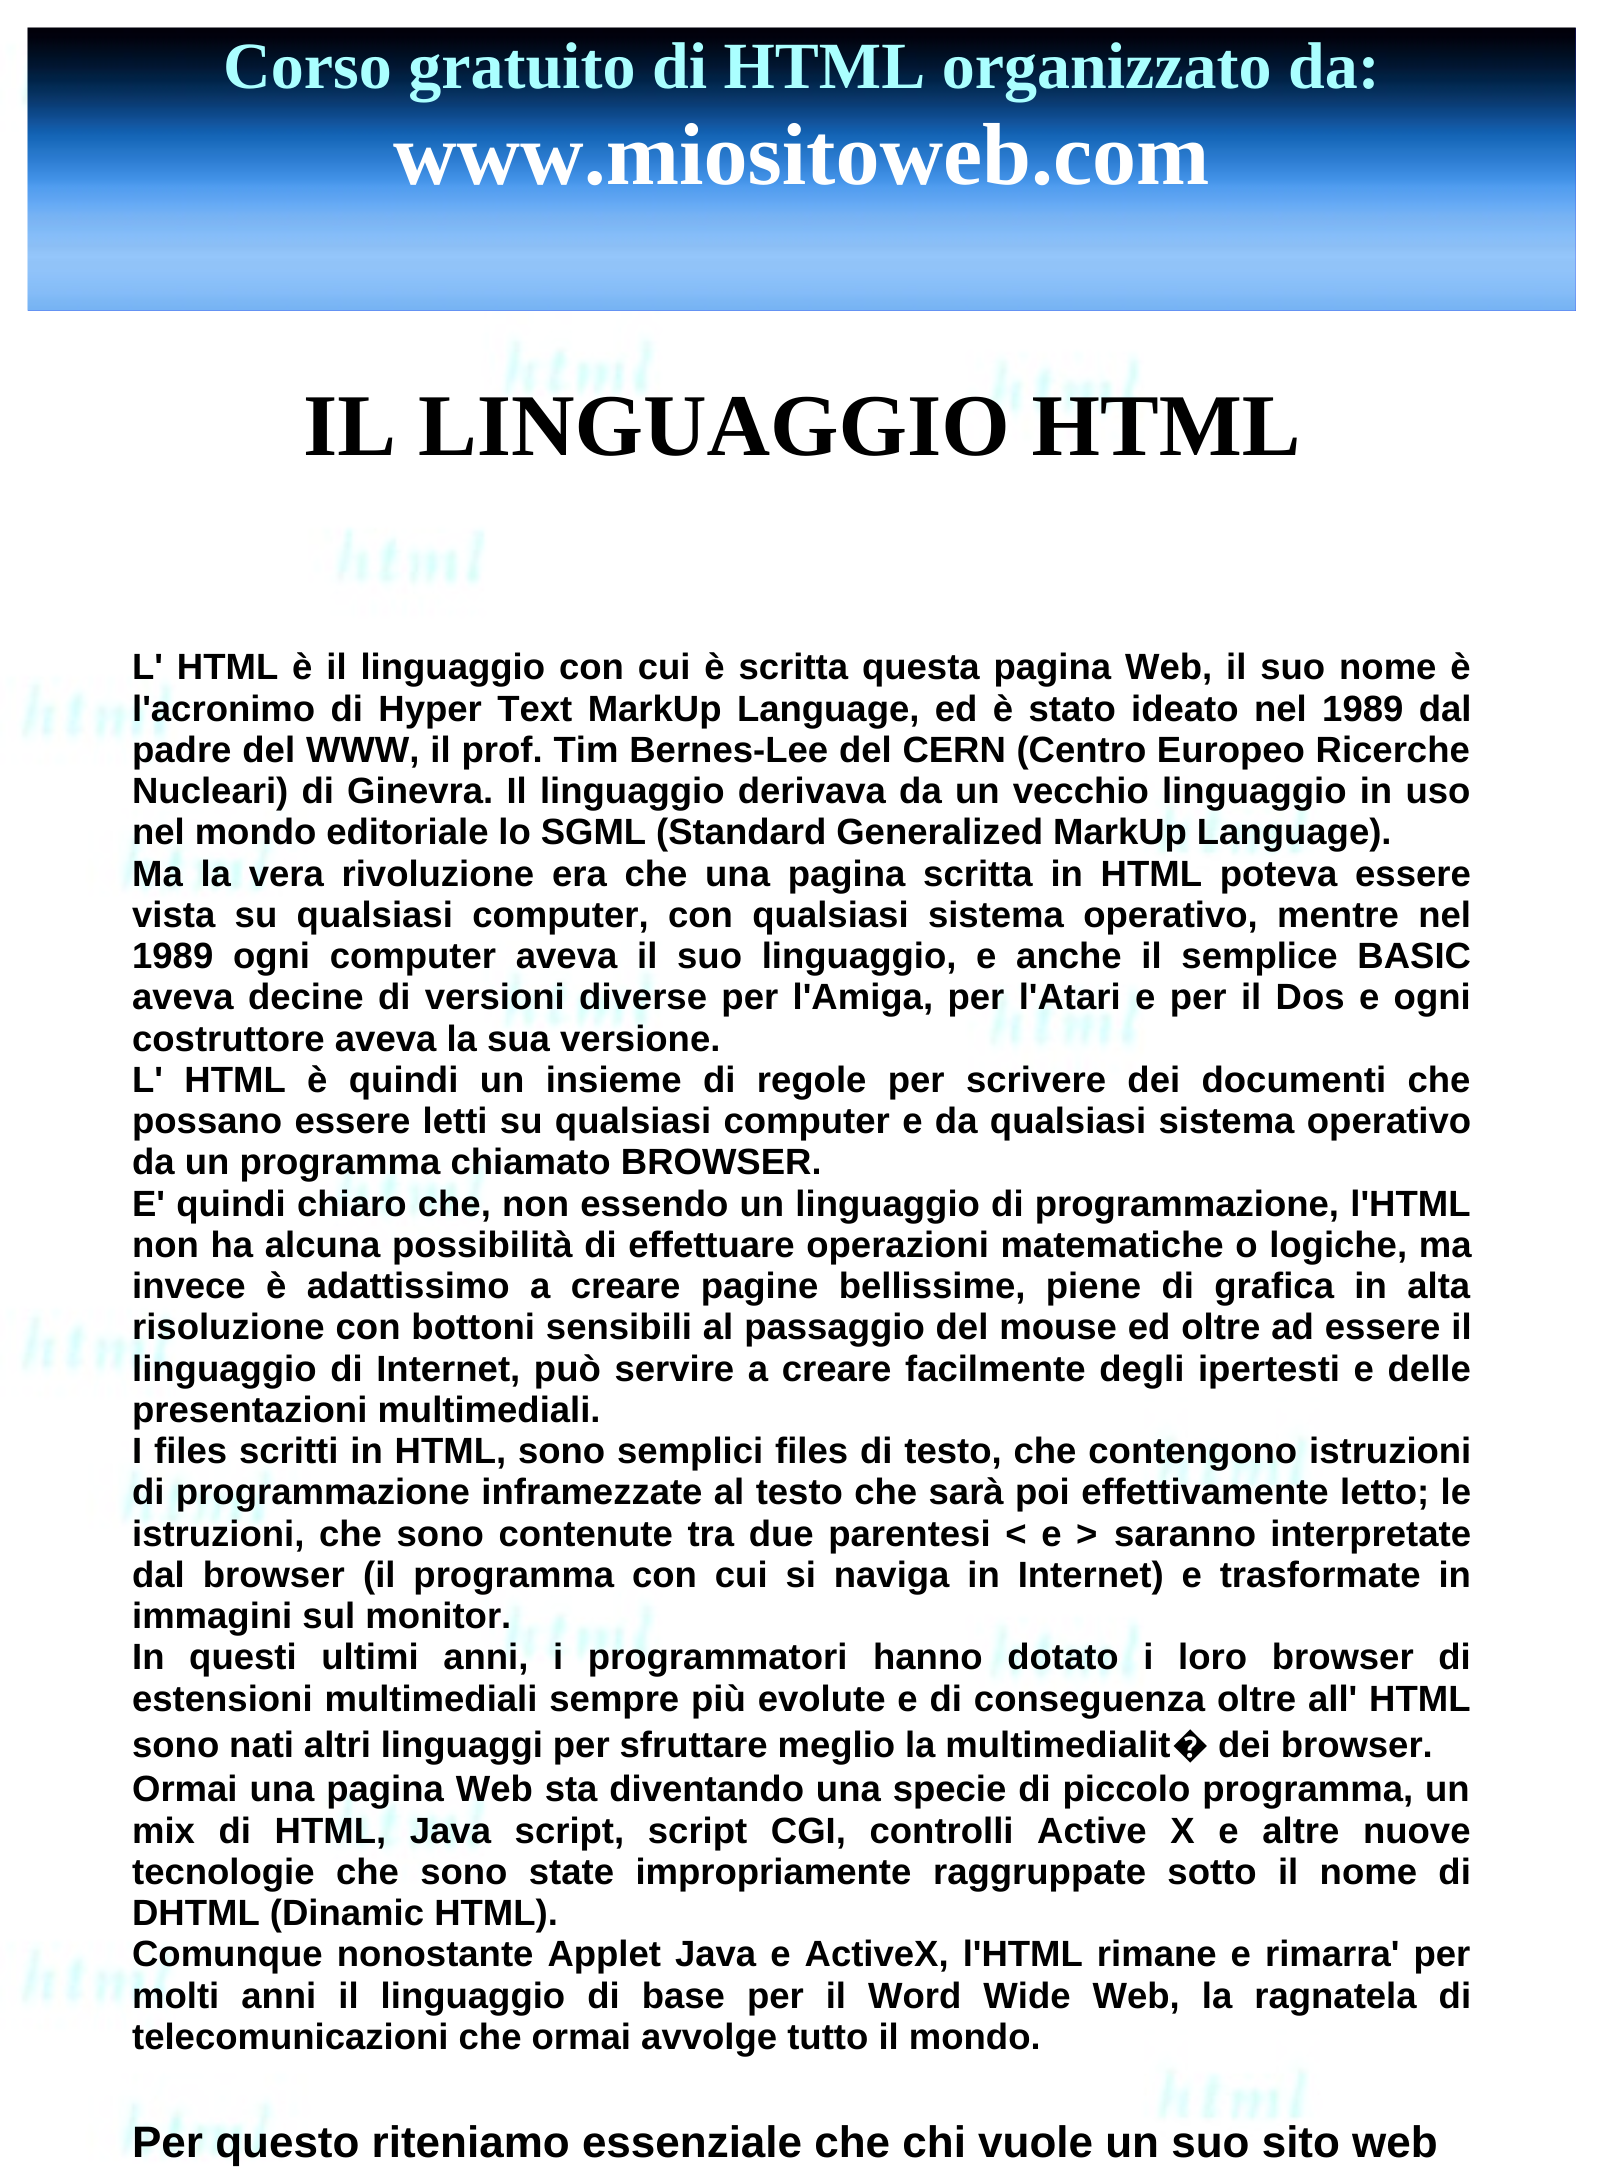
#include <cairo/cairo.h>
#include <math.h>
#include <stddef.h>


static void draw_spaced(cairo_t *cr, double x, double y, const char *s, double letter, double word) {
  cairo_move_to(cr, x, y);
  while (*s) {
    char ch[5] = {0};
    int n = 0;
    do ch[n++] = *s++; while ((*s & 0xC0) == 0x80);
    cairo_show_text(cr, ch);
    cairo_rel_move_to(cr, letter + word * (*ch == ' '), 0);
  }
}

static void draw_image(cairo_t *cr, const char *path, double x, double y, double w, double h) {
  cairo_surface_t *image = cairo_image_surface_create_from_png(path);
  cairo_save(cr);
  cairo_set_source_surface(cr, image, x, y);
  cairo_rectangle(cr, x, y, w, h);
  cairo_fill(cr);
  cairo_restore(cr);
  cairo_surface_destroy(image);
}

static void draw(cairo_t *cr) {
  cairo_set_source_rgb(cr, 1, 1, 1);
  cairo_paint(cr);
  draw_image(cr, "images/1.png", 0, 0, 1601, 2176);
  cairo_set_source_rgb(cr, 51 / 255.0, 51 / 255.0, 238 / 255.0);
  cairo_rectangle(cr, 28, 28, 1548, 283);
  cairo_fill(cr);
  draw_image(cr, "images/2.png", 27, 27, 1549, 284);
  cairo_select_font_face(cr, "Liberation Serif", CAIRO_FONT_SLANT_NORMAL, CAIRO_FONT_WEIGHT_BOLD);
  cairo_set_font_size(cr, 66);
  cairo_set_source_rgb(cr, 170 / 255.0, 1, 1);
  cairo_move_to(cr, 223, 88);
  cairo_show_text(cr, "Corso gratuito di HTML organizzato da:");
  cairo_set_font_size(cr, 88);
  cairo_set_source_rgb(cr, 1, 1, 1);
  cairo_move_to(cr, 393, 184);
  cairo_show_text(cr, "www.miositoweb.com");
  cairo_set_source_rgb(cr, 0, 0, 0);
  cairo_move_to(cr, 303, 455);
  cairo_show_text(cr, "IL LINGUAGGIO HTML");
  cairo_select_font_face(cr, "Liberation Sans", CAIRO_FONT_SLANT_NORMAL, CAIRO_FONT_WEIGHT_BOLD);
  cairo_set_font_size(cr, 36.5);
  draw_spaced(cr, 132, 679, "L' HTML è il linguaggio con cui è scritta questa pagina Web, il suo nome è", 0, 3.75);
  draw_spaced(cr, 132, 721, "l'acronimo di Hyper Text MarkUp Language, ed è stato ideato nel 1989 dal", 0, 5.25);
  draw_spaced(cr, 132, 762, "padre del WWW, il prof. Tim Bernes-Lee", 0, 0.75);
  draw_spaced(cr, 839, 762, "del CERN (Centro Europeo Ricerche", 0, 0.5);
  draw_spaced(cr, 132, 803, "Nucleari) di Ginevra. Il linguaggio derivava da un vecchio linguaggio in uso", 0, 3.1);
  draw_spaced(cr, 132, 844, "nel mondo editoriale lo SGML (Standard Generalized MarkUp Language).", 0, -0.25);
  draw_spaced(cr, 132, 886, "Ma la vera rivoluzione era che una pagina scritta in HTML poteva essere", 0, 7.6);
  draw_spaced(cr, 132, 927, "vista su qualsiasi computer, con qualsiasi sistema operativo, mentre nel", 0, 9.25);
  draw_spaced(cr, 132, 968, "1989 ogni computer aveva il suo linguaggio, e anche il semplice BASIC", 0, 9.6);
  draw_spaced(cr, 132, 1009, "aveva decine di versioni diverse per l'Amiga, per l'Atari e per il Dos e ogni", 0, 4.25);
  cairo_move_to(cr, 132, 1051);
  cairo_show_text(cr, "costruttore aveva la sua versione.");
  draw_spaced(cr, 132, 1092, "L' HTML è quindi un insieme di regole per scrivere dei documenti che", 0, 11.25);
  draw_spaced(cr, 132, 1133, "possano essere letti su qualsiasi computer e da qualsiasi sistema operativo", 0, 2.25);
  cairo_move_to(cr, 132, 1174);
  cairo_show_text(cr, "da un programma chiamato BROWSER.");
  draw_spaced(cr, 132, 1216, "E' quindi chiaro che, non essendo un linguaggio di programmazione, l'HTML", 0, 1.1);
  draw_spaced(cr, 132, 1257, "non ha alcuna possibilità di effettuare operazioni matematiche o logiche, ma", 0, 1.5);
  draw_spaced(cr, 132, 1298, "invece è adattissimo a creare pagine bellissime, piene di grafica in alta", 0, 10.25);
  draw_spaced(cr, 132, 1339, "risoluzione con bottoni sensibili al passaggio del mouse ed oltre ad essere il", 0, 0.75);
  draw_spaced(cr, 132, 1381, "linguaggio di Internet, può servire a creare facilmente degli ipertesti e delle", 0, 3.5);
  cairo_move_to(cr, 132, 1422);
  cairo_show_text(cr, "presentazioni multimediali.");
  draw_spaced(cr, 132, 1463, "I files scritti in HTML, sono semplici files di testo, che contengono istruzioni", 0, 1.75);
  draw_spaced(cr, 132, 1504, "di programmazione inframezzate al testo che sarà poi effettivamente letto; le", 0, 1.25);
  draw_spaced(cr, 132, 1546, "istruzioni, che sono contenute tra due parentesi < e >", 0, 4.5);
  draw_spaced(cr, 1114, 1546, "saranno interpretate", 0, 4);
  draw_spaced(cr, 132, 1587, "dal browser", 0, 7.75);
  draw_spaced(cr, 363, 1587, "(il programma con cui si naviga in Internet) e trasformate in", 0, 7.75);
  cairo_move_to(cr, 132, 1628);
  cairo_show_text(cr, "immagini sul monitor.");
  draw_spaced(cr, 132, 1669, "In questi ultimi anni, i programmatori", 0, 14.5);
  draw_spaced(cr, 873, 1669, "hanno dotato i loro browser di", 0, 14.5);
  draw_spaced(cr, 132, 1711, "estensioni multimediali sempre più evolute e di conseguenza oltre all' HTML", 0, 1.75);
  draw_spaced(cr, 132, 1757, "sono nati altri linguaggi per sfruttare meglio la multimedialit", 0, -0.25);
  cairo_select_font_face(cr, "Noto Sans", CAIRO_FONT_SLANT_NORMAL, CAIRO_FONT_WEIGHT_BOLD);
  cairo_move_to(cr, 1172, 1757);
  cairo_show_text(cr, "�");
  cairo_select_font_face(cr, "Liberation Sans", CAIRO_FONT_SLANT_NORMAL, CAIRO_FONT_WEIGHT_BOLD);
  draw_spaced(cr, 1218, 1757, "dei browser.", 0, -0.25);
  draw_spaced(cr, 132, 1801, "Ormai una pagina Web sta diventando una specie di piccolo programma, un", 0, 1.75);
  draw_spaced(cr, 132, 1843, "mix di HTML, Java script, script CGI, controlli Active X e altre nuove", 0, 13.5);
  draw_spaced(cr, 132, 1884, "tecnologie che sono state impropriamente", 0, 11.25);
  draw_spaced(cr, 933, 1884, "raggruppate sotto il nome di", 0, 11.25);
  cairo_move_to(cr, 132, 1925);
  cairo_show_text(cr, "DHTML (Dinamic HTML).");
  draw_spaced(cr, 132, 1966, "Comunque nonostante Applet Java e ActiveX, l'HTML rimane e rimarra' per", 0, 3.9);
  draw_spaced(cr, 132, 2008, "molti anni il linguaggio di base per il Word Wide Web, la ragnatela di", 0, 11.9);
  cairo_move_to(cr, 132, 2049);
  cairo_show_text(cr, "telecomunicazioni che ormai avvolge tutto il mondo.");
  cairo_set_font_size(cr, 44);
  cairo_move_to(cr, 132, 2157);
  cairo_show_text(cr, "Per questo riteniamo essenziale che chi vuole un suo sito web");
}

int main(void) {
  cairo_surface_t *surface = cairo_image_surface_create(CAIRO_FORMAT_RGB24, 1601, 2176);
  cairo_t *cr = cairo_create(surface);
  cairo_font_options_t *options = cairo_font_options_create();
  cairo_font_options_set_hint_metrics(options, CAIRO_HINT_METRICS_OFF);
  cairo_font_options_set_hint_style(options, CAIRO_HINT_STYLE_NONE);
  cairo_set_font_options(cr, options);
  cairo_set_miter_limit(cr, 4);
  draw(cr);
  cairo_surface_write_to_png(surface, "out.png");
  cairo_font_options_destroy(options);
  cairo_destroy(cr);
  cairo_surface_destroy(surface);
  return 0;
}
